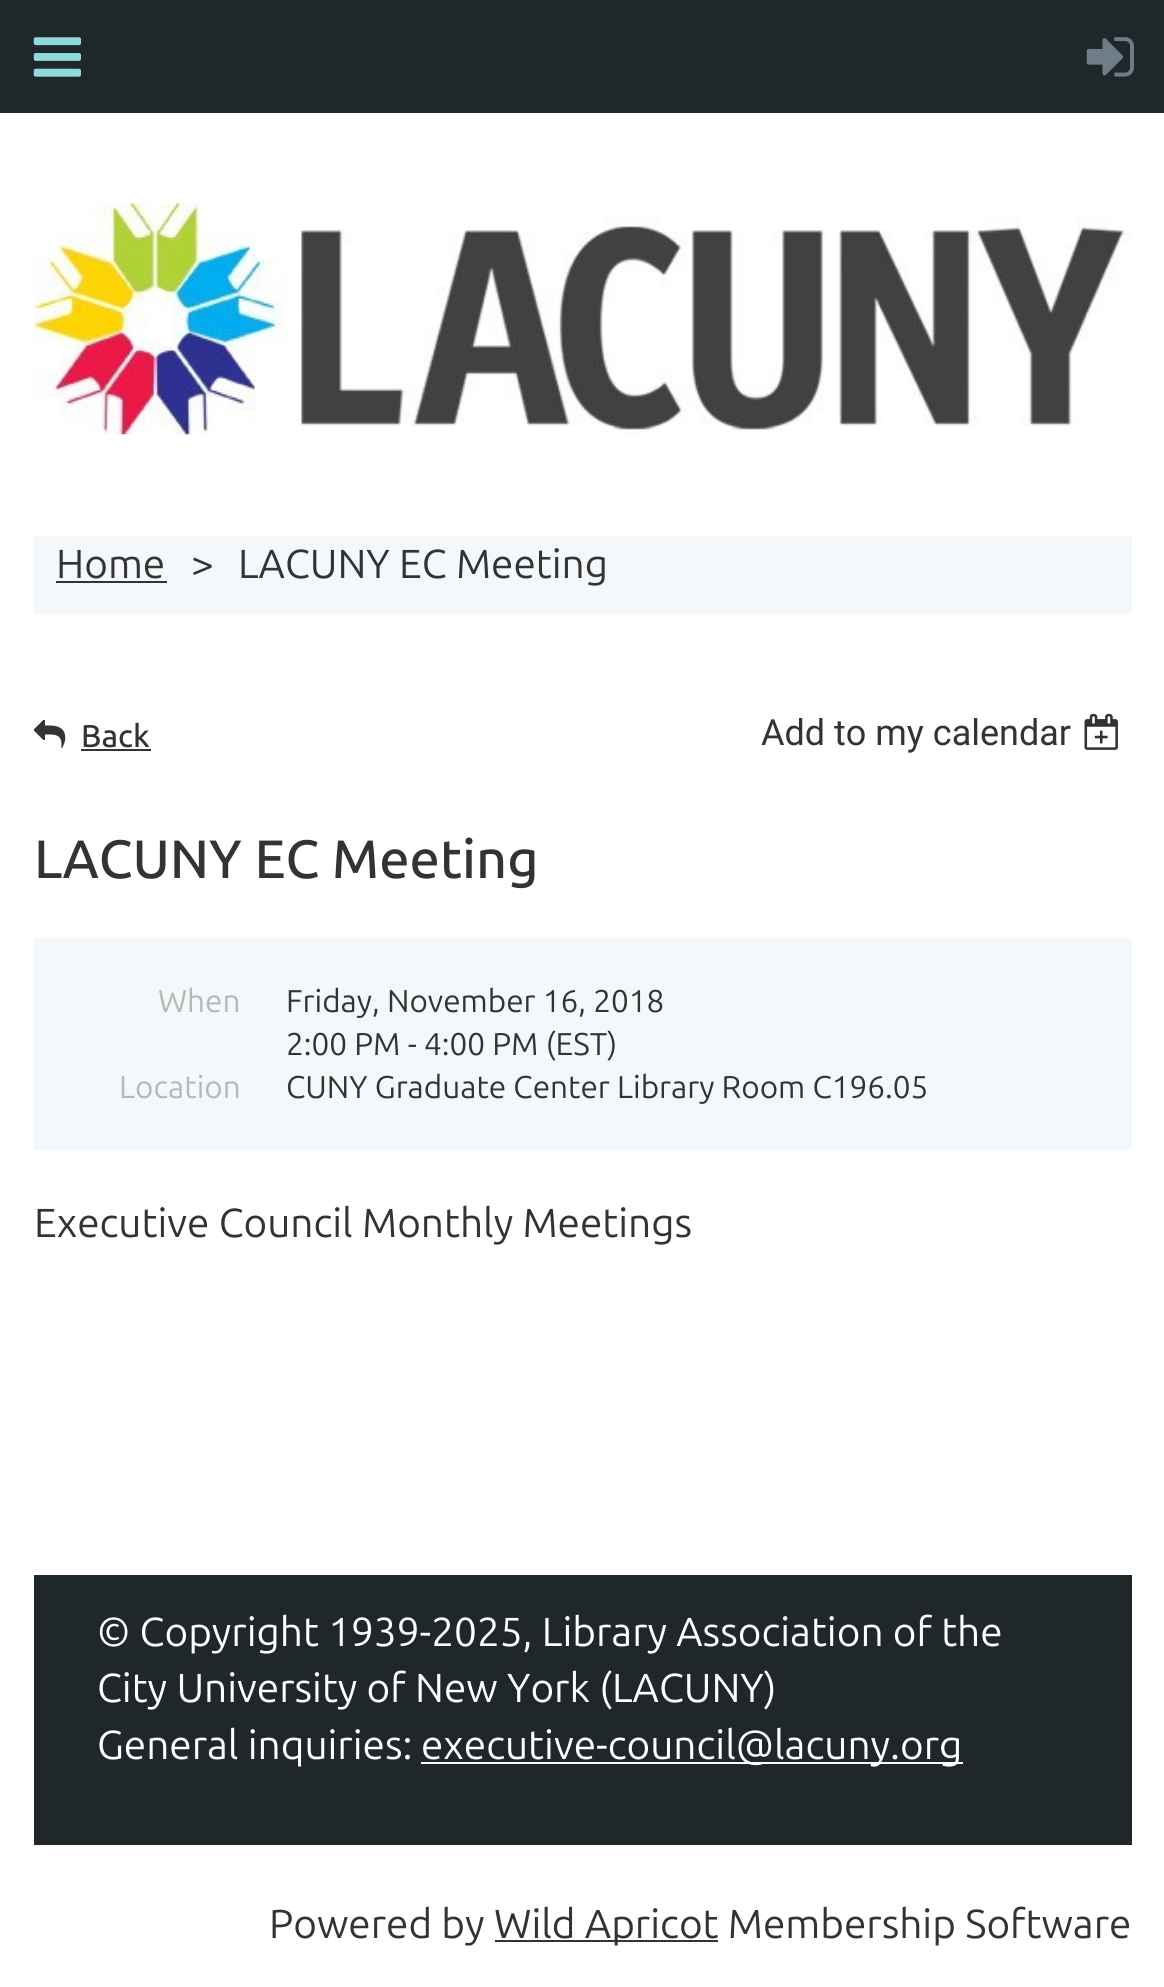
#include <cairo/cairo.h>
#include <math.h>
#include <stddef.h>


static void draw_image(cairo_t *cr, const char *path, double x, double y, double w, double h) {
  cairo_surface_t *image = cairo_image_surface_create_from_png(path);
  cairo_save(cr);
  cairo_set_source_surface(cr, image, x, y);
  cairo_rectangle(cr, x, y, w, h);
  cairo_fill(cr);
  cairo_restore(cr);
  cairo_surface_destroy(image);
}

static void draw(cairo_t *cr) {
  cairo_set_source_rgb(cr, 1, 1, 1);
  cairo_paint(cr);
  cairo_set_source_rgb(cr, 31 / 255.0, 39 / 255.0, 43 / 255.0);
  cairo_rectangle(cr, 0, 0, 1164, 113);
  cairo_fill(cr);
  draw_image(cr, "images/1.png", 33, 37, 48, 40);
  draw_image(cr, "images/2.png", 1086, 37, 48, 40);
  draw_image(cr, "images/3.png", 34, 202, 1097, 233);
  cairo_set_source_rgb(cr, 244 / 255.0, 248 / 255.0, 250 / 255.0);
  cairo_rectangle(cr, 34, 536, 1098, 78);
  cairo_fill(cr);
  cairo_set_source_rgb(cr, 51 / 255.0, 51 / 255.0, 51 / 255.0);
  cairo_rectangle(cr, 56, 581, 111, 2);
  cairo_fill(cr);
  draw_image(cr, "images/4.png", 33, 719, 33, 29);
  cairo_rectangle(cr, 81, 749, 70, 2);
  cairo_fill(cr);
  draw_image(cr, "images/5.png", 1084, 713, 34, 37);
  cairo_set_source_rgb(cr, 244 / 255.0, 248 / 255.0, 250 / 255.0);
  cairo_rectangle(cr, 34, 938, 1098, 212);
  cairo_fill(cr);
  cairo_set_source_rgb(cr, 31 / 255.0, 39 / 255.0, 43 / 255.0);
  cairo_rectangle(cr, 34, 1575, 1098, 270);
  cairo_fill(cr);
  cairo_set_source_rgb(cr, 1, 1, 1);
  cairo_rectangle(cr, 421, 1762, 542, 2);
  cairo_fill(cr);
  cairo_set_source_rgb(cr, 51 / 255.0, 51 / 255.0, 51 / 255.0);
  cairo_rectangle(cr, 495, 1940, 223, 2);
  cairo_fill(cr);
  cairo_select_font_face(cr, "Ubuntu", CAIRO_FONT_SLANT_NORMAL, CAIRO_FONT_WEIGHT_NORMAL);
  cairo_set_font_size(cr, 40.5);
  cairo_move_to(cr, 56, 578);
  cairo_show_text(cr, "Home");
  cairo_move_to(cr, 191, 578);
  cairo_show_text(cr, ">");
  cairo_move_to(cr, 238, 578);
  cairo_show_text(cr, "LACUNY EC Meeting");
  cairo_select_font_face(cr, "Ubuntu Medium", CAIRO_FONT_SLANT_NORMAL, CAIRO_FONT_WEIGHT_NORMAL);
  cairo_set_font_size(cr, 31.5);
  cairo_move_to(cr, 81, 747);
  cairo_show_text(cr, "Back");
  cairo_select_font_face(cr, "Roboto", CAIRO_FONT_SLANT_NORMAL, CAIRO_FONT_WEIGHT_NORMAL);
  cairo_set_font_size(cr, 36);
  cairo_move_to(cr, 761, 745);
  cairo_show_text(cr, "Add to my calendar");
  cairo_select_font_face(cr, "Ubuntu Medium", CAIRO_FONT_SLANT_NORMAL, CAIRO_FONT_WEIGHT_NORMAL);
  cairo_set_font_size(cr, 54);
  cairo_move_to(cr, 34, 878);
  cairo_show_text(cr, "LACUNY EC Meeting");
  cairo_select_font_face(cr, "Ubuntu", CAIRO_FONT_SLANT_NORMAL, CAIRO_FONT_WEIGHT_NORMAL);
  cairo_set_font_size(cr, 31.5);
  cairo_set_source_rgb(cr, 183 / 255.0, 183 / 255.0, 183 / 255.0);
  cairo_move_to(cr, 158, 1012);
  cairo_show_text(cr, "When");
  cairo_set_source_rgb(cr, 51 / 255.0, 51 / 255.0, 51 / 255.0);
  cairo_move_to(cr, 286, 1012);
  cairo_show_text(cr, "Friday, November 16, 2018");
  cairo_move_to(cr, 286, 1055);
  cairo_show_text(cr, "2:00 PM - 4:00 PM (EST)");
  cairo_set_source_rgb(cr, 183 / 255.0, 183 / 255.0, 183 / 255.0);
  cairo_move_to(cr, 119, 1098);
  cairo_show_text(cr, "Location");
  cairo_set_source_rgb(cr, 51 / 255.0, 51 / 255.0, 51 / 255.0);
  cairo_move_to(cr, 286, 1098);
  cairo_show_text(cr, "CUNY Graduate Center Library Room C196.05");
  cairo_set_font_size(cr, 40.5);
  cairo_move_to(cr, 34, 1237);
  cairo_show_text(cr, "Executive Council Monthly Meetings");
  cairo_set_source_rgb(cr, 1, 1, 1);
  cairo_move_to(cr, 97, 1646);
  cairo_show_text(cr, "© Copyright 1939-2025, Library Association of the");
  cairo_move_to(cr, 97, 1702);
  cairo_show_text(cr, "City University of New York (LACUNY)");
  cairo_move_to(cr, 97, 1759);
  cairo_show_text(cr, "General inquiries:");
  cairo_move_to(cr, 421, 1759);
  cairo_show_text(cr, "executive-council@lacuny.org");
  cairo_set_source_rgb(cr, 51 / 255.0, 51 / 255.0, 51 / 255.0);
  cairo_move_to(cr, 269, 1938);
  cairo_show_text(cr, "Powered by");
  cairo_move_to(cr, 494, 1938);
  cairo_show_text(cr, "Wild Apricot Membership Software");
}

int main(void) {
  cairo_surface_t *surface = cairo_image_surface_create(CAIRO_FORMAT_RGB24, 1164, 1987);
  cairo_t *cr = cairo_create(surface);
  cairo_font_options_t *options = cairo_font_options_create();
  cairo_font_options_set_hint_metrics(options, CAIRO_HINT_METRICS_OFF);
  cairo_font_options_set_hint_style(options, CAIRO_HINT_STYLE_NONE);
  cairo_set_font_options(cr, options);
  cairo_set_miter_limit(cr, 4);
  draw(cr);
  cairo_surface_write_to_png(surface, "out.png");
  cairo_font_options_destroy(options);
  cairo_destroy(cr);
  cairo_surface_destroy(surface);
  return 0;
}
